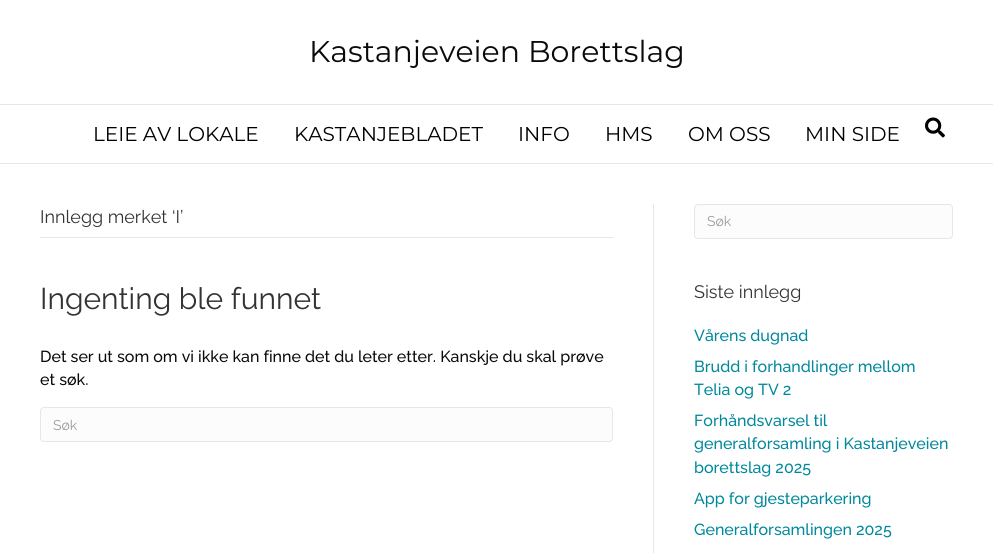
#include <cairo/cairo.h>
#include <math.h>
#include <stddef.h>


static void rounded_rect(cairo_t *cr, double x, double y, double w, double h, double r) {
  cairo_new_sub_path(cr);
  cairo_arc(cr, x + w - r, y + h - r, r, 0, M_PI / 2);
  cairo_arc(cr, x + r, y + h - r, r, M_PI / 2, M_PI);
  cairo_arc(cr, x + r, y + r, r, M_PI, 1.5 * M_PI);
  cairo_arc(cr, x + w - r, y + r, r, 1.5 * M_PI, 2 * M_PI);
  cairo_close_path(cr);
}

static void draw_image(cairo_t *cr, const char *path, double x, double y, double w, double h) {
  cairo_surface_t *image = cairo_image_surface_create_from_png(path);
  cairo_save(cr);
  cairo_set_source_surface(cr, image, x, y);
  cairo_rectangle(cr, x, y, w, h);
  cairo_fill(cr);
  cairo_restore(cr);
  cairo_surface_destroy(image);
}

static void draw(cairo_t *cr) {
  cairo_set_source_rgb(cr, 1, 1, 1);
  cairo_paint(cr);
  cairo_set_source_rgb(cr, 230 / 255.0, 230 / 255.0, 230 / 255.0);
  cairo_rectangle(cr, 0, 104, 993, 1);
  cairo_fill(cr);
  cairo_rectangle(cr, 0, 163, 993, 1);
  cairo_fill(cr);
  draw_image(cr, "images/1.png", 925, 117, 20, 21);
  cairo_rectangle(cr, 653, 204, 1, 349);
  cairo_fill(cr);
  cairo_rectangle(cr, 40, 237, 573, 1);
  cairo_fill(cr);
  cairo_set_source_rgb(cr, 252 / 255.0, 252 / 255.0, 252 / 255.0);
  rounded_rect(cr, 40.5, 407.5, 572, 34, 3.5);
  cairo_fill_preserve(cr);
  cairo_set_source_rgb(cr, 230 / 255.0, 230 / 255.0, 230 / 255.0);
  cairo_set_line_width(cr, 1);
  cairo_stroke(cr);
  cairo_set_source_rgb(cr, 252 / 255.0, 252 / 255.0, 252 / 255.0);
  rounded_rect(cr, 694.5, 204.5, 258, 34, 3.5);
  cairo_fill_preserve(cr);
  cairo_set_source_rgb(cr, 230 / 255.0, 230 / 255.0, 230 / 255.0);
  cairo_stroke(cr);
  cairo_select_font_face(cr, "Montserrat Thin", CAIRO_FONT_SLANT_NORMAL, CAIRO_FONT_WEIGHT_NORMAL);
  cairo_set_font_size(cr, 30);
  cairo_set_source_rgb(cr, 10 / 255.0, 10 / 255.0, 10 / 255.0);
  cairo_move_to(cr, 309, 62);
  cairo_show_text(cr, "Kastanjeveien Borettslag");
  cairo_set_font_size(cr, 20);
  cairo_set_source_rgb(cr, 0, 0, 0);
  cairo_move_to(cr, 93, 141);
  cairo_show_text(cr, "LEIE AV LOKALE");
  cairo_move_to(cr, 294, 141);
  cairo_show_text(cr, "KASTANJEBLADET");
  cairo_move_to(cr, 518, 141);
  cairo_show_text(cr, "INFO");
  cairo_move_to(cr, 605, 141);
  cairo_show_text(cr, "HMS");
  cairo_move_to(cr, 688, 141);
  cairo_show_text(cr, "OM OSS");
  cairo_move_to(cr, 805, 141);
  cairo_show_text(cr, "MIN SIDE");
  cairo_select_font_face(cr, "Raleway", CAIRO_FONT_SLANT_NORMAL, CAIRO_FONT_WEIGHT_NORMAL);
  cairo_set_font_size(cr, 18);
  cairo_set_source_rgb(cr, 51 / 255.0, 51 / 255.0, 51 / 255.0);
  cairo_move_to(cr, 40, 223);
  cairo_show_text(cr, "Innlegg merket ‘I’");
  cairo_set_font_size(cr, 30);
  cairo_move_to(cr, 40, 309);
  cairo_show_text(cr, "Ingenting ble funnet");
  cairo_select_font_face(cr, "Raleway Medium", CAIRO_FONT_SLANT_NORMAL, CAIRO_FONT_WEIGHT_NORMAL);
  cairo_set_font_size(cr, 16);
  cairo_set_source_rgb(cr, 10 / 255.0, 10 / 255.0, 10 / 255.0);
  cairo_move_to(cr, 40, 362);
  cairo_show_text(cr, "Det ser ut som om vi ikke kan finne det du leter etter. Kanskje du skal prøve");
  cairo_move_to(cr, 40, 385);
  cairo_show_text(cr, "et søk.");
  cairo_select_font_face(cr, "Raleway", CAIRO_FONT_SLANT_NORMAL, CAIRO_FONT_WEIGHT_NORMAL);
  cairo_set_font_size(cr, 14);
  cairo_set_source_rgb(cr, 155 / 255.0, 155 / 255.0, 155 / 255.0);
  cairo_move_to(cr, 53, 430);
  cairo_show_text(cr, "Søk");
  cairo_move_to(cr, 707, 226);
  cairo_show_text(cr, "Søk");
  cairo_set_font_size(cr, 18);
  cairo_set_source_rgb(cr, 51 / 255.0, 51 / 255.0, 51 / 255.0);
  cairo_move_to(cr, 694, 298);
  cairo_show_text(cr, "Siste innlegg");
  cairo_select_font_face(cr, "Raleway Medium", CAIRO_FONT_SLANT_NORMAL, CAIRO_FONT_WEIGHT_NORMAL);
  cairo_set_font_size(cr, 16);
  cairo_set_source_rgb(cr, 0, 136 / 255.0, 156 / 255.0);
  cairo_move_to(cr, 694, 341);
  cairo_show_text(cr, "Vårens dugnad");
  cairo_move_to(cr, 694, 372);
  cairo_show_text(cr, "Brudd i forhandlinger mellom");
  cairo_move_to(cr, 694, 395);
  cairo_show_text(cr, "Telia og TV 2");
  cairo_move_to(cr, 694, 426);
  cairo_show_text(cr, "Forhåndsvarsel til");
  cairo_move_to(cr, 694, 449);
  cairo_show_text(cr, "generalforsamling i Kastanjeveien");
  cairo_move_to(cr, 694, 473);
  cairo_show_text(cr, "borettslag 2025");
  cairo_move_to(cr, 694, 504);
  cairo_show_text(cr, "App for gjesteparkering");
  cairo_move_to(cr, 694, 535);
  cairo_show_text(cr, "Generalforsamlingen 2025");
}

int main(void) {
  cairo_surface_t *surface = cairo_image_surface_create(CAIRO_FORMAT_RGB24, 993, 553);
  cairo_t *cr = cairo_create(surface);
  cairo_font_options_t *options = cairo_font_options_create();
  cairo_font_options_set_hint_metrics(options, CAIRO_HINT_METRICS_OFF);
  cairo_font_options_set_hint_style(options, CAIRO_HINT_STYLE_NONE);
  cairo_set_font_options(cr, options);
  cairo_set_miter_limit(cr, 4);
  draw(cr);
  cairo_surface_write_to_png(surface, "out.png");
  cairo_font_options_destroy(options);
  cairo_destroy(cr);
  cairo_surface_destroy(surface);
  return 0;
}
